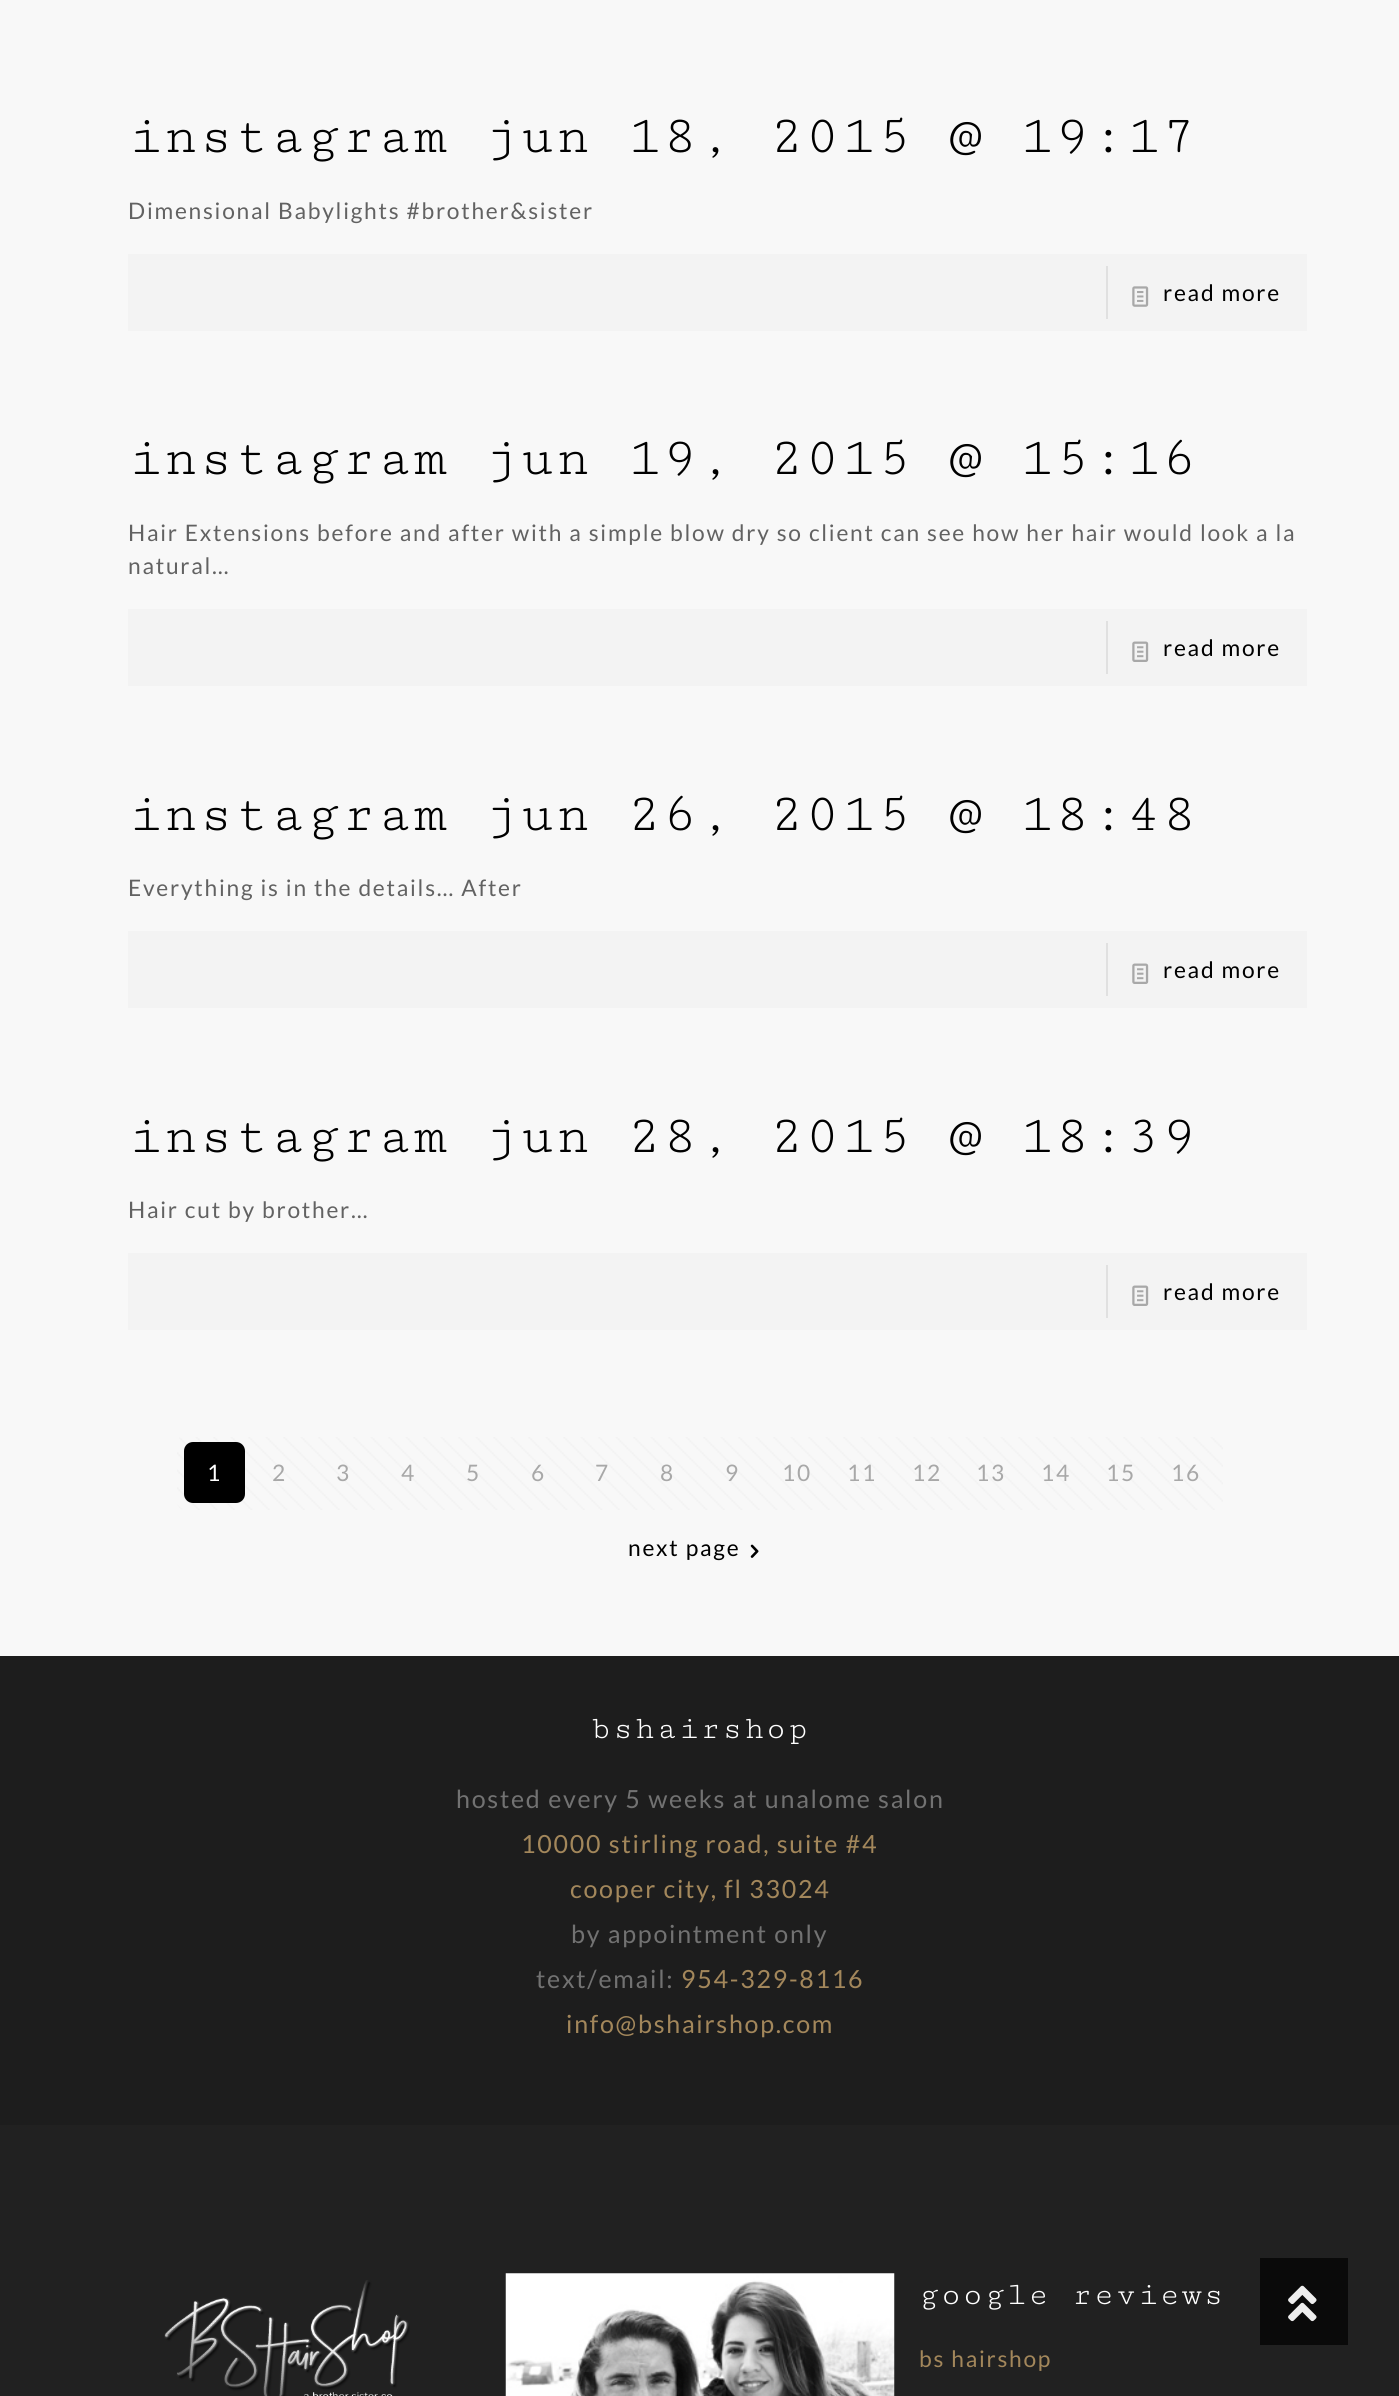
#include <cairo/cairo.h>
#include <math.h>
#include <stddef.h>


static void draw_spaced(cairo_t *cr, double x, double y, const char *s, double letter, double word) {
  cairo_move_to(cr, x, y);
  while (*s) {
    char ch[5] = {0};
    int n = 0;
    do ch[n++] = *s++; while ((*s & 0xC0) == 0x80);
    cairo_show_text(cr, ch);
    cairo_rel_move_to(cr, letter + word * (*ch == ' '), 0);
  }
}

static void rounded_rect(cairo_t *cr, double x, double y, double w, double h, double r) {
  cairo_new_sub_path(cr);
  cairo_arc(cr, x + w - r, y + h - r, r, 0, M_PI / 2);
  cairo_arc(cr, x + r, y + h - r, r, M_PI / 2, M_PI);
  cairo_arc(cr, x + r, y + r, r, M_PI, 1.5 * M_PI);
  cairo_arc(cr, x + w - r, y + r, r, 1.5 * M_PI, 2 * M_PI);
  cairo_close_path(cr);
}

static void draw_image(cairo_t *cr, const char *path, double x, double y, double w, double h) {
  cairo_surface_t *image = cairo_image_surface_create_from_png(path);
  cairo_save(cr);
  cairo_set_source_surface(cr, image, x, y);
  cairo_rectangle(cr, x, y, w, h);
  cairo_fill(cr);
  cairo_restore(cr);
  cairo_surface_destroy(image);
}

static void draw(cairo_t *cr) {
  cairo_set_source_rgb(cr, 248 / 255.0, 248 / 255.0, 248 / 255.0);
  cairo_paint(cr);
  cairo_set_source_rgb(cr, 243 / 255.0, 243 / 255.0, 243 / 255.0);
  cairo_rectangle(cr, 128, 254, 1179, 77);
  cairo_fill(cr);
  cairo_set_source_rgb(cr, 224 / 255.0, 224 / 255.0, 224 / 255.0);
  cairo_rectangle(cr, 1106, 266, 2, 53);
  cairo_fill(cr);
  draw_image(cr, "images/1.png", 1132, 286, 17, 21);
  cairo_set_source_rgb(cr, 243 / 255.0, 243 / 255.0, 243 / 255.0);
  cairo_rectangle(cr, 128, 609, 1179, 77);
  cairo_fill(cr);
  cairo_set_source_rgb(cr, 224 / 255.0, 224 / 255.0, 224 / 255.0);
  cairo_rectangle(cr, 1106, 621, 2, 53);
  cairo_fill(cr);
  draw_image(cr, "images/2.png", 1132, 641, 17, 21);
  cairo_set_source_rgb(cr, 243 / 255.0, 243 / 255.0, 243 / 255.0);
  cairo_rectangle(cr, 128, 931, 1179, 77);
  cairo_fill(cr);
  cairo_set_source_rgb(cr, 224 / 255.0, 224 / 255.0, 224 / 255.0);
  cairo_rectangle(cr, 1106, 943, 2, 53);
  cairo_fill(cr);
  draw_image(cr, "images/2.png", 1132, 963, 17, 21);
  cairo_set_source_rgb(cr, 243 / 255.0, 243 / 255.0, 243 / 255.0);
  cairo_rectangle(cr, 128, 1253, 1179, 77);
  cairo_fill(cr);
  cairo_set_source_rgb(cr, 224 / 255.0, 224 / 255.0, 224 / 255.0);
  cairo_rectangle(cr, 1106, 1265, 2, 53);
  cairo_fill(cr);
  draw_image(cr, "images/2.png", 1132, 1285, 17, 21);
  draw_image(cr, "images/3.png", 177, 1437, 1046, 73);
  cairo_set_source_rgb(cr, 0, 0, 0);
  rounded_rect(cr, 184, 1442, 61, 61, 9);
  cairo_fill(cr);
  draw_image(cr, "images/4.png", 750, 1544, 9, 14);
  cairo_set_source_rgb(cr, 33 / 255.0, 33 / 255.0, 33 / 255.0);
  cairo_rectangle(cr, 0, 2125, 1399, 271);
  cairo_fill(cr);
  cairo_set_source_rgb(cr, 29 / 255.0, 29 / 255.0, 29 / 255.0);
  cairo_rectangle(cr, 0, 1656, 1399, 469);
  cairo_fill(cr);
  draw_image(cr, "images/5.png", 164, 2280, 246, 116);
  draw_image(cr, "images/6.png", 505, 2273, 390, 123);
  cairo_set_source_rgb(cr, 10 / 255.0, 10 / 255.0, 10 / 255.0);
  cairo_rectangle(cr, 1260, 2258, 88, 87);
  cairo_fill(cr);
  draw_image(cr, "images/7.png", 1288, 2285, 29, 37);
  cairo_select_font_face(cr, "Cutive Mono", CAIRO_FONT_SLANT_NORMAL, CAIRO_FONT_WEIGHT_NORMAL);
  cairo_set_font_size(cr, 56);
  cairo_set_source_rgb(cr, 0, 0, 0);
  draw_spaced(cr, 128, 152, "instagram jun 18, 2015 @ 19:17", 1.75, 0);
  cairo_select_font_face(cr, "Lato", CAIRO_FONT_SLANT_NORMAL, CAIRO_FONT_WEIGHT_NORMAL);
  cairo_set_font_size(cr, 22.75);
  cairo_set_source_rgb(cr, 98 / 255.0, 98 / 255.0, 98 / 255.0);
  draw_spaced(cr, 128, 219, "Dimensional Babylights #brother&sister", 1.75, 0);
  cairo_set_source_rgb(cr, 0, 0, 0);
  draw_spaced(cr, 1163, 301, "read more", 1.75, 0);
  cairo_select_font_face(cr, "Cutive Mono", CAIRO_FONT_SLANT_NORMAL, CAIRO_FONT_WEIGHT_NORMAL);
  cairo_set_font_size(cr, 56);
  draw_spaced(cr, 128, 474, "instagram jun 19, 2015 @ 15:16", 1.75, 0);
  cairo_select_font_face(cr, "Lato", CAIRO_FONT_SLANT_NORMAL, CAIRO_FONT_WEIGHT_NORMAL);
  cairo_set_font_size(cr, 22.75);
  cairo_set_source_rgb(cr, 98 / 255.0, 98 / 255.0, 98 / 255.0);
  draw_spaced(cr, 128, 541, "Hair Extensions before and after with a simple blow dry so client can see how her hair would look a la", 1.75, 0);
  draw_spaced(cr, 128, 574, "natural…", 1.75, 0);
  cairo_set_source_rgb(cr, 0, 0, 0);
  draw_spaced(cr, 1163, 656, "read more", 1.75, 0);
  cairo_select_font_face(cr, "Cutive Mono", CAIRO_FONT_SLANT_NORMAL, CAIRO_FONT_WEIGHT_NORMAL);
  cairo_set_font_size(cr, 56);
  draw_spaced(cr, 128, 830, "instagram jun 26, 2015 @ 18:48", 1.75, 0);
  cairo_select_font_face(cr, "Lato", CAIRO_FONT_SLANT_NORMAL, CAIRO_FONT_WEIGHT_NORMAL);
  cairo_set_font_size(cr, 22.75);
  cairo_set_source_rgb(cr, 98 / 255.0, 98 / 255.0, 98 / 255.0);
  draw_spaced(cr, 128, 896, "Everything is in the details… After", 1.75, 0);
  cairo_set_source_rgb(cr, 0, 0, 0);
  draw_spaced(cr, 1163, 978, "read more", 1.75, 0);
  cairo_select_font_face(cr, "Cutive Mono", CAIRO_FONT_SLANT_NORMAL, CAIRO_FONT_WEIGHT_NORMAL);
  cairo_set_font_size(cr, 56);
  draw_spaced(cr, 128, 1152, "instagram jun 28, 2015 @ 18:39", 1.75, 0);
  cairo_select_font_face(cr, "Lato", CAIRO_FONT_SLANT_NORMAL, CAIRO_FONT_WEIGHT_NORMAL);
  cairo_set_font_size(cr, 22.75);
  cairo_set_source_rgb(cr, 98 / 255.0, 98 / 255.0, 98 / 255.0);
  draw_spaced(cr, 128, 1218, "Hair cut by brother…", 1.75, 0);
  cairo_set_source_rgb(cr, 0, 0, 0);
  draw_spaced(cr, 1163, 1300, "read more", 1.75, 0);
  cairo_set_source_rgb(cr, 1, 1, 1);
  draw_spaced(cr, 207, 1481, "1", 1.75, 0);
  cairo_set_source_rgb(cr, 168 / 255.0, 168 / 255.0, 168 / 255.0);
  draw_spaced(cr, 272, 1481, "2", 1.75, 0);
  draw_spaced(cr, 336, 1481, "3", 1.75, 0);
  draw_spaced(cr, 401, 1481, "4", 1.75, 0);
  draw_spaced(cr, 466, 1481, "5", 1.75, 0);
  draw_spaced(cr, 531, 1481, "6", 1.75, 0);
  draw_spaced(cr, 595, 1481, "7", 1.75, 0);
  draw_spaced(cr, 660, 1481, "8", 1.75, 0);
  draw_spaced(cr, 725, 1481, "9", 1.75, 0);
  draw_spaced(cr, 782, 1481, "10", 1.75, 0);
  draw_spaced(cr, 847, 1481, "11", 1.75, 0);
  draw_spaced(cr, 912, 1481, "12", 1.75, 0);
  draw_spaced(cr, 976, 1481, "13", 1.75, 0);
  draw_spaced(cr, 1041, 1481, "14", 1.75, 0);
  draw_spaced(cr, 1106, 1481, "15", 1.75, 0);
  draw_spaced(cr, 1171, 1481, "16", 1.75, 0);
  cairo_set_source_rgb(cr, 0, 0, 0);
  draw_spaced(cr, 628, 1556, "next page", 1.75, 0);
  cairo_select_font_face(cr, "Cutive Mono", CAIRO_FONT_SLANT_NORMAL, CAIRO_FONT_WEIGHT_NORMAL);
  cairo_set_font_size(cr, 33.25);
  cairo_set_source_rgb(cr, 1, 1, 1);
  draw_spaced(cr, 591, 1738, "bshairshop", 1.75, 0);
  cairo_select_font_face(cr, "Lato", CAIRO_FONT_SLANT_NORMAL, CAIRO_FONT_WEIGHT_NORMAL);
  cairo_set_font_size(cr, 25);
  cairo_set_source_rgb(cr, 114 / 255.0, 114 / 255.0, 114 / 255.0);
  draw_spaced(cr, 456, 1808, "hosted every 5 weeks at unalome salon", 1.75, 0);
  cairo_set_source_rgb(cr, 163 / 255.0, 135 / 255.0, 91 / 255.0);
  draw_spaced(cr, 521, 1853, "10000 stirling road, suite #4", 1.75, 0);
  draw_spaced(cr, 570, 1898, "cooper city, fl 33024", 1.75, 0);
  cairo_set_source_rgb(cr, 114 / 255.0, 114 / 255.0, 114 / 255.0);
  draw_spaced(cr, 571, 1943, "by appointment only", 1.75, 0);
  draw_spaced(cr, 536, 1988, "text/email:", 1.75, 0);
  cairo_set_source_rgb(cr, 163 / 255.0, 135 / 255.0, 91 / 255.0);
  draw_spaced(cr, 681, 1988, "954-329-8116", 1.75, 0);
  draw_spaced(cr, 566, 2033, "info@bshairshop.com", 1.75, 0);
  cairo_select_font_face(cr, "Cutive Mono", CAIRO_FONT_SLANT_NORMAL, CAIRO_FONT_WEIGHT_NORMAL);
  cairo_set_font_size(cr, 33.25);
  cairo_set_source_rgb(cr, 1, 1, 1);
  draw_spaced(cr, 919, 2304, "google reviews", 1.75, 0);
  cairo_select_font_face(cr, "Lato", CAIRO_FONT_SLANT_NORMAL, CAIRO_FONT_WEIGHT_NORMAL);
  cairo_set_font_size(cr, 22.75);
  cairo_set_source_rgb(cr, 163 / 255.0, 135 / 255.0, 91 / 255.0);
  draw_spaced(cr, 919, 2367, "bs hairshop", 1.75, 0);
}

int main(void) {
  cairo_surface_t *surface = cairo_image_surface_create(CAIRO_FORMAT_RGB24, 1399, 2396);
  cairo_t *cr = cairo_create(surface);
  cairo_font_options_t *options = cairo_font_options_create();
  cairo_font_options_set_hint_metrics(options, CAIRO_HINT_METRICS_OFF);
  cairo_font_options_set_hint_style(options, CAIRO_HINT_STYLE_NONE);
  cairo_set_font_options(cr, options);
  cairo_set_miter_limit(cr, 4);
  draw(cr);
  cairo_surface_write_to_png(surface, "out.png");
  cairo_font_options_destroy(options);
  cairo_destroy(cr);
  cairo_surface_destroy(surface);
  return 0;
}
